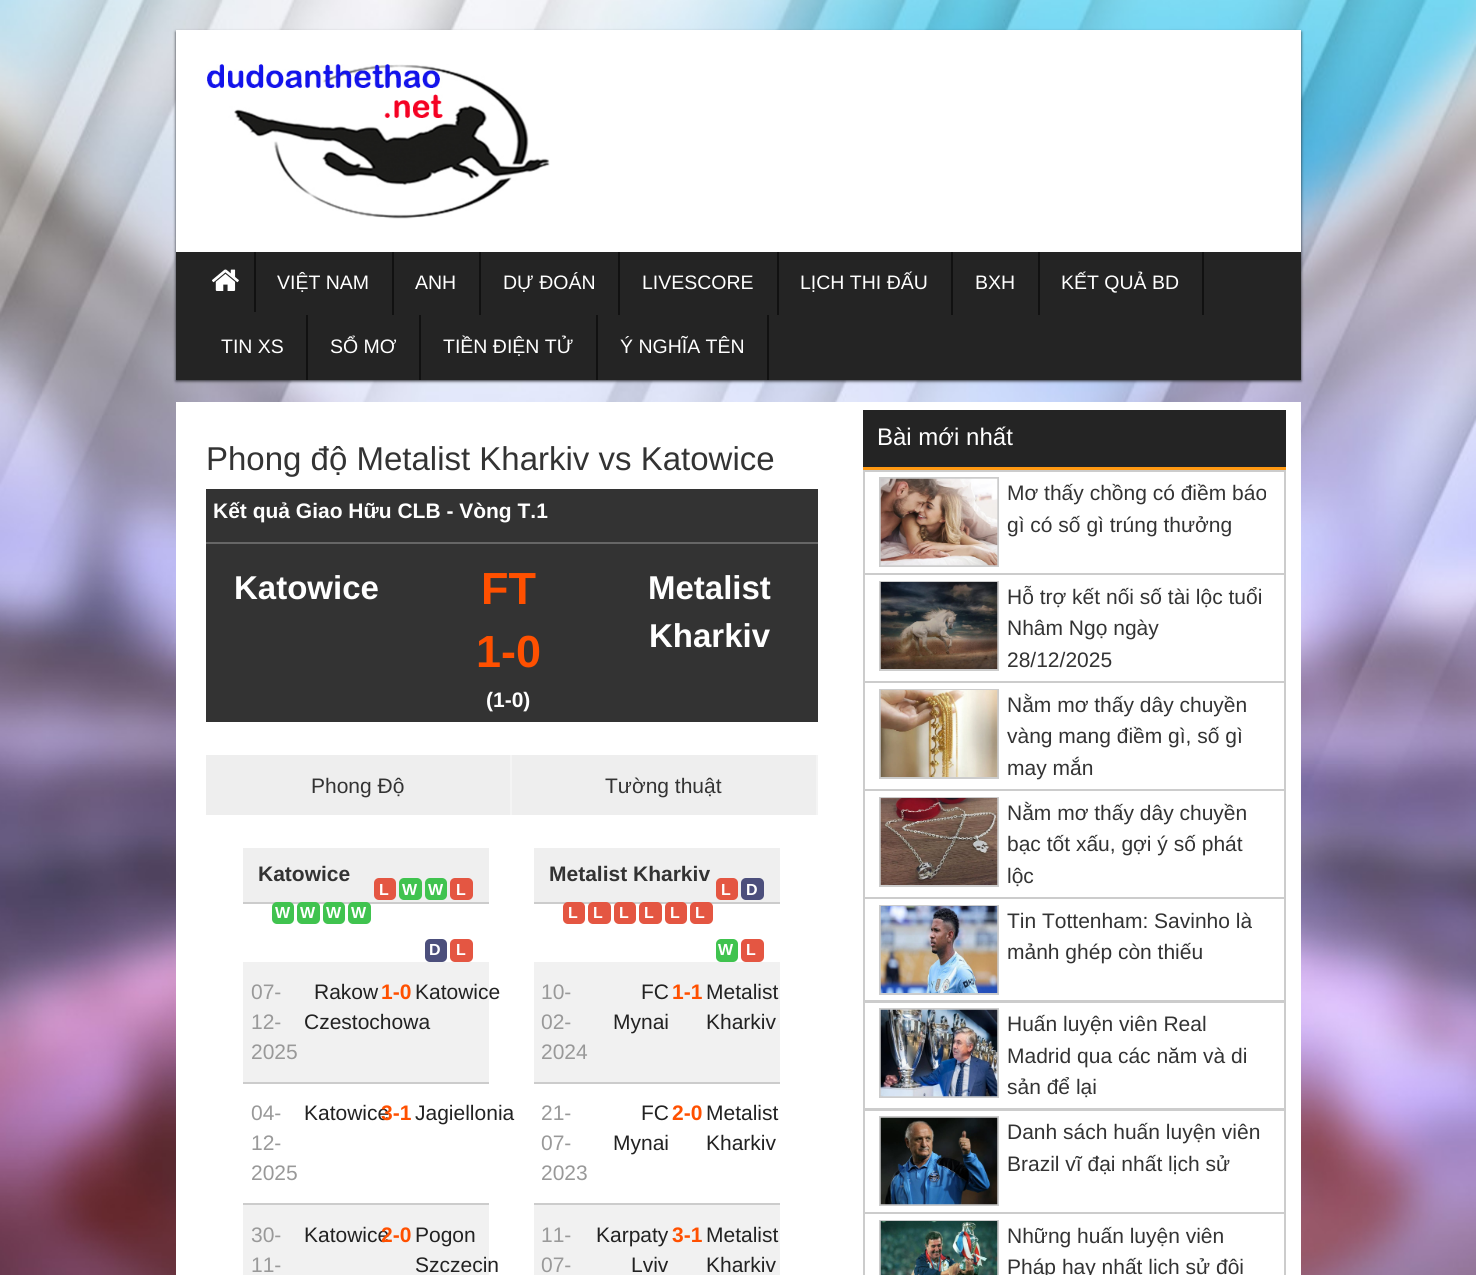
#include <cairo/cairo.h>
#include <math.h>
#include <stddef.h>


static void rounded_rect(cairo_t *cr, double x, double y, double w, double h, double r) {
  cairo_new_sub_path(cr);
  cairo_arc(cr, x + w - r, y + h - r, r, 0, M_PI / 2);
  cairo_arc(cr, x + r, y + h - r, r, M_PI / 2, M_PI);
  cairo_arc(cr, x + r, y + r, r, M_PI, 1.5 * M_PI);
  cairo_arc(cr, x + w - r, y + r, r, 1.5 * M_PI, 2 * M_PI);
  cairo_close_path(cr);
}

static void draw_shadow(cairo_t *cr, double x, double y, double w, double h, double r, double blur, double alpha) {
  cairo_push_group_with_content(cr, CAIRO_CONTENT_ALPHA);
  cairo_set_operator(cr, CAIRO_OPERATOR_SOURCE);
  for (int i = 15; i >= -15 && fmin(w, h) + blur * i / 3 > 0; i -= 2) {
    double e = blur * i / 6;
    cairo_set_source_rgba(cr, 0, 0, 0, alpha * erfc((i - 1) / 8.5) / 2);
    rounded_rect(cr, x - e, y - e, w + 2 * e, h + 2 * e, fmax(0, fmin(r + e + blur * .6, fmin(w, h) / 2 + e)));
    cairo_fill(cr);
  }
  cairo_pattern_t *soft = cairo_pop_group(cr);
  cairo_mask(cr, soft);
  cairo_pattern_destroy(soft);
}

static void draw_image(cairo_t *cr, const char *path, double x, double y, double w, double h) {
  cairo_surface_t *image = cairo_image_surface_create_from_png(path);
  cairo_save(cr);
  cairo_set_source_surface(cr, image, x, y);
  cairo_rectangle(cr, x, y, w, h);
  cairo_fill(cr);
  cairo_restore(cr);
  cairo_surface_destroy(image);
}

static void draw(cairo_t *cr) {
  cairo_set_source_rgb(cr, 1, 1, 1);
  cairo_paint(cr);
  draw_image(cr, "images/1.png", 0, 0, 1476, 1275);
  cairo_set_source_rgb(cr, 41 / 255.0, 42 / 255.0, 48 / 255.0);
  draw_shadow(cr, 176, 32, 1125, 349, 0, 1.5, 1);
  cairo_set_source_rgb(cr, 1, 1, 1);
  cairo_rectangle(cr, 176, 30, 1125, 222);
  cairo_fill(cr);
  draw_image(cr, "images/2.png", 207, 64, 343, 155);
  cairo_set_source_rgb(cr, 36 / 255.0, 36 / 255.0, 36 / 255.0);
  cairo_rectangle(cr, 176, 252, 1125, 128);
  cairo_fill(cr);
  cairo_set_source_rgb(cr, 17 / 255.0, 17 / 255.0, 17 / 255.0);
  cairo_rectangle(cr, 254, 252, 2, 60);
  cairo_fill(cr);
  draw_image(cr, "images/3.png", 212, 269, 27, 22);
  cairo_rectangle(cr, 392, 252, 2, 63);
  cairo_fill(cr);
  cairo_rectangle(cr, 479, 252, 2, 63);
  cairo_fill(cr);
  cairo_rectangle(cr, 618, 252, 2, 63);
  cairo_fill(cr);
  cairo_rectangle(cr, 777, 252, 2, 63);
  cairo_fill(cr);
  cairo_rectangle(cr, 951, 252, 2, 63);
  cairo_fill(cr);
  cairo_rectangle(cr, 1038, 252, 2, 63);
  cairo_fill(cr);
  cairo_rectangle(cr, 1202, 252, 2, 63);
  cairo_fill(cr);
  cairo_rectangle(cr, 306, 315, 2, 65);
  cairo_fill(cr);
  cairo_rectangle(cr, 419, 315, 2, 65);
  cairo_fill(cr);
  cairo_rectangle(cr, 596, 315, 2, 65);
  cairo_fill(cr);
  cairo_rectangle(cr, 767, 315, 2, 65);
  cairo_fill(cr);
  cairo_set_source_rgb(cr, 1, 1, 1);
  cairo_rectangle(cr, 176, 402, 1125, 873);
  cairo_fill(cr);
  cairo_set_source_rgb(cr, 51 / 255.0, 51 / 255.0, 51 / 255.0);
  cairo_rectangle(cr, 206, 489, 612, 233);
  cairo_fill(cr);
  cairo_set_source_rgb(cr, 102 / 255.0, 102 / 255.0, 102 / 255.0);
  cairo_rectangle(cr, 206, 542, 612, 2);
  cairo_fill(cr);
  cairo_set_source_rgb(cr, 238 / 255.0, 238 / 255.0, 238 / 255.0);
  cairo_rectangle(cr, 206, 755, 610, 60);
  cairo_fill(cr);
  cairo_set_source_rgb(cr, 244 / 255.0, 244 / 255.0, 244 / 255.0);
  cairo_rectangle(cr, 510, 755, 2, 60);
  cairo_fill(cr);
  cairo_rectangle(cr, 816, 755, 2, 60);
  cairo_fill(cr);
  cairo_set_source_rgb(cr, 239 / 255.0, 239 / 255.0, 239 / 255.0);
  cairo_rectangle(cr, 243, 848, 246, 54);
  cairo_fill(cr);
  cairo_set_source_rgb(cr, 204 / 255.0, 204 / 255.0, 204 / 255.0);
  cairo_rectangle(cr, 243, 902, 246, 2);
  cairo_fill(cr);
  cairo_set_source_rgb(cr, 228 / 255.0, 86 / 255.0, 66 / 255.0);
  rounded_rect(cr, 374, 878, 22, 22, 5);
  cairo_fill(cr);
  cairo_set_source_rgb(cr, 64 / 255.0, 195 / 255.0, 79 / 255.0);
  rounded_rect(cr, 399, 878, 23, 22, 5);
  cairo_fill(cr);
  rounded_rect(cr, 425, 878, 22, 22, 5);
  cairo_fill(cr);
  cairo_set_source_rgb(cr, 228 / 255.0, 86 / 255.0, 66 / 255.0);
  rounded_rect(cr, 450, 878, 23, 22, 5);
  cairo_fill(cr);
  cairo_set_source_rgb(cr, 64 / 255.0, 195 / 255.0, 79 / 255.0);
  rounded_rect(cr, 272, 902, 22, 22, 5);
  cairo_fill(cr);
  rounded_rect(cr, 297, 902, 23, 22, 5);
  cairo_fill(cr);
  rounded_rect(cr, 323, 902, 22, 22, 5);
  cairo_fill(cr);
  rounded_rect(cr, 348, 902, 23, 22, 5);
  cairo_fill(cr);
  cairo_set_source_rgb(cr, 76 / 255.0, 79 / 255.0, 124 / 255.0);
  rounded_rect(cr, 425, 939, 22, 23, 5);
  cairo_fill(cr);
  cairo_set_source_rgb(cr, 228 / 255.0, 86 / 255.0, 66 / 255.0);
  rounded_rect(cr, 450, 939, 23, 23, 5);
  cairo_fill(cr);
  cairo_set_source_rgb(cr, 241 / 255.0, 241 / 255.0, 241 / 255.0);
  cairo_rectangle(cr, 243, 962, 246, 120);
  cairo_fill(cr);
  cairo_set_source_rgb(cr, 204 / 255.0, 204 / 255.0, 204 / 255.0);
  cairo_rectangle(cr, 243, 1082, 246, 2);
  cairo_fill(cr);
  cairo_rectangle(cr, 243, 1203, 246, 2);
  cairo_fill(cr);
  cairo_set_source_rgb(cr, 241 / 255.0, 241 / 255.0, 241 / 255.0);
  cairo_rectangle(cr, 243, 1205, 246, 70);
  cairo_fill(cr);
  cairo_set_source_rgb(cr, 239 / 255.0, 239 / 255.0, 239 / 255.0);
  cairo_rectangle(cr, 534, 848, 246, 54);
  cairo_fill(cr);
  cairo_set_source_rgb(cr, 204 / 255.0, 204 / 255.0, 204 / 255.0);
  cairo_rectangle(cr, 534, 902, 246, 2);
  cairo_fill(cr);
  cairo_set_source_rgb(cr, 228 / 255.0, 86 / 255.0, 66 / 255.0);
  rounded_rect(cr, 716, 878, 22, 22, 5);
  cairo_fill(cr);
  cairo_set_source_rgb(cr, 76 / 255.0, 79 / 255.0, 124 / 255.0);
  rounded_rect(cr, 741, 878, 23, 22, 5);
  cairo_fill(cr);
  cairo_set_source_rgb(cr, 228 / 255.0, 86 / 255.0, 66 / 255.0);
  rounded_rect(cr, 563, 902, 22, 22, 5);
  cairo_fill(cr);
  rounded_rect(cr, 588, 902, 23, 22, 5);
  cairo_fill(cr);
  rounded_rect(cr, 614, 902, 22, 22, 5);
  cairo_fill(cr);
  rounded_rect(cr, 639, 902, 23, 22, 5);
  cairo_fill(cr);
  rounded_rect(cr, 665, 902, 22, 22, 5);
  cairo_fill(cr);
  rounded_rect(cr, 690, 902, 23, 22, 5);
  cairo_fill(cr);
  cairo_set_source_rgb(cr, 64 / 255.0, 195 / 255.0, 79 / 255.0);
  rounded_rect(cr, 716, 939, 22, 23, 5);
  cairo_fill(cr);
  cairo_set_source_rgb(cr, 228 / 255.0, 86 / 255.0, 66 / 255.0);
  rounded_rect(cr, 741, 939, 23, 23, 5);
  cairo_fill(cr);
  cairo_set_source_rgb(cr, 241 / 255.0, 241 / 255.0, 241 / 255.0);
  cairo_rectangle(cr, 534, 962, 246, 120);
  cairo_fill(cr);
  cairo_set_source_rgb(cr, 204 / 255.0, 204 / 255.0, 204 / 255.0);
  cairo_rectangle(cr, 534, 1082, 246, 2);
  cairo_fill(cr);
  cairo_rectangle(cr, 534, 1203, 246, 2);
  cairo_fill(cr);
  cairo_set_source_rgb(cr, 241 / 255.0, 241 / 255.0, 241 / 255.0);
  cairo_rectangle(cr, 534, 1205, 246, 70);
  cairo_fill(cr);
  cairo_set_source_rgb(cr, 36 / 255.0, 36 / 255.0, 36 / 255.0);
  cairo_rectangle(cr, 863, 410, 423, 57);
  cairo_fill(cr);
  cairo_set_source_rgb(cr, 1, 153 / 255.0, 18 / 255.0);
  cairo_rectangle(cr, 863, 467, 423, 3);
  cairo_fill(cr);
  cairo_rectangle(cr, 864, 471, 421, 103);
  cairo_set_source_rgb(cr, 204 / 255.0, 204 / 255.0, 204 / 255.0);
  cairo_stroke(cr);
  cairo_rectangle(cr, 880, 478, 118, 88);
  cairo_stroke(cr);
  draw_image(cr, "images/4.png", 880, 478, 118, 88);
  cairo_rectangle(cr, 864, 574, 421, 108);
  cairo_stroke(cr);
  cairo_rectangle(cr, 880, 582, 118, 88);
  cairo_stroke(cr);
  draw_image(cr, "images/5.png", 880, 582, 118, 87);
  cairo_rectangle(cr, 864, 682, 421, 108);
  cairo_stroke(cr);
  cairo_rectangle(cr, 880, 690, 118, 88);
  cairo_stroke(cr);
  draw_image(cr, "images/6.png", 880, 690, 118, 87);
  cairo_rectangle(cr, 864, 790, 421, 108);
  cairo_stroke(cr);
  cairo_rectangle(cr, 880, 798, 118, 88);
  cairo_stroke(cr);
  draw_image(cr, "images/7.png", 880, 798, 118, 87);
  cairo_rectangle(cr, 864, 898, 421, 103);
  cairo_stroke(cr);
  cairo_rectangle(cr, 880, 906, 118, 88);
  cairo_stroke(cr);
  draw_image(cr, "images/8.png", 880, 906, 118, 87);
  cairo_rectangle(cr, 864, 1002, 421, 107);
  cairo_stroke(cr);
  cairo_rectangle(cr, 880, 1009, 118, 88);
  cairo_stroke(cr);
  draw_image(cr, "images/9.png", 880, 1009, 118, 88);
  cairo_rectangle(cr, 864, 1110, 421, 103);
  cairo_stroke(cr);
  cairo_rectangle(cr, 880, 1117, 118, 88);
  cairo_stroke(cr);
  draw_image(cr, "images/10.png", 880, 1117, 118, 88);
  cairo_rectangle(cr, 864, 1213, 421, 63);
  cairo_stroke(cr);
  cairo_rectangle(cr, 880, 1221, 118, 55);
  cairo_stroke(cr);
  draw_image(cr, "images/11.png", 880, 1221, 118, 54);
  cairo_select_font_face(cr, "Liberation Sans", CAIRO_FONT_SLANT_NORMAL, CAIRO_FONT_WEIGHT_NORMAL);
  cairo_set_font_size(cr, 19.5);
  cairo_set_source_rgb(cr, 1, 1, 1);
  cairo_move_to(cr, 277, 289);
  cairo_show_text(cr, "VIỆT NAM");
  cairo_move_to(cr, 415, 289);
  cairo_show_text(cr, "ANH");
  cairo_move_to(cr, 503, 289);
  cairo_show_text(cr, "DỰ ĐOÁN");
  cairo_move_to(cr, 642, 289);
  cairo_show_text(cr, "LIVESCORE");
  cairo_move_to(cr, 800, 289);
  cairo_show_text(cr, "LỊCH THI ĐẤU");
  cairo_move_to(cr, 975, 289);
  cairo_show_text(cr, "BXH");
  cairo_move_to(cr, 1061, 289);
  cairo_show_text(cr, "KẾT QUẢ BD");
  cairo_move_to(cr, 221, 353);
  cairo_show_text(cr, "TIN XS");
  cairo_move_to(cr, 330, 353);
  cairo_show_text(cr, "SỔ MƠ");
  cairo_move_to(cr, 443, 353);
  cairo_show_text(cr, "TIỀN ĐIỆN TỬ");
  cairo_move_to(cr, 620, 353);
  cairo_show_text(cr, "Ý NGHĨA TÊN");
  cairo_set_font_size(cr, 33);
  cairo_set_source_rgb(cr, 51 / 255.0, 51 / 255.0, 51 / 255.0);
  cairo_move_to(cr, 206, 470);
  cairo_show_text(cr, "Phong độ Metalist Kharkiv vs Katowice");
  cairo_select_font_face(cr, "Liberation Sans", CAIRO_FONT_SLANT_NORMAL, CAIRO_FONT_WEIGHT_BOLD);
  cairo_set_font_size(cr, 21);
  cairo_set_source_rgb(cr, 1, 1, 1);
  cairo_move_to(cr, 213, 518);
  cairo_show_text(cr, "Kết quả Giao Hữu CLB - Vòng T.1");
  cairo_set_font_size(cr, 33);
  cairo_move_to(cr, 234, 599);
  cairo_show_text(cr, "Katowice");
  cairo_set_font_size(cr, 45);
  cairo_set_source_rgb(cr, 1, 80 / 255.0, 0);
  cairo_move_to(cr, 481, 604);
  cairo_show_text(cr, "FT");
  cairo_move_to(cr, 476, 667);
  cairo_show_text(cr, "1-0");
  cairo_set_font_size(cr, 21);
  cairo_set_source_rgb(cr, 1, 1, 1);
  cairo_move_to(cr, 486, 707);
  cairo_show_text(cr, "(1-0)");
  cairo_set_font_size(cr, 33);
  cairo_move_to(cr, 648, 599);
  cairo_show_text(cr, "Metalist");
  cairo_move_to(cr, 649, 647);
  cairo_show_text(cr, "Kharkiv");
  cairo_select_font_face(cr, "Liberation Sans", CAIRO_FONT_SLANT_NORMAL, CAIRO_FONT_WEIGHT_NORMAL);
  cairo_set_font_size(cr, 21);
  cairo_set_source_rgb(cr, 51 / 255.0, 51 / 255.0, 51 / 255.0);
  cairo_move_to(cr, 311, 793);
  cairo_show_text(cr, "Phong Độ");
  cairo_move_to(cr, 605, 793);
  cairo_show_text(cr, "Tường thuật");
  cairo_select_font_face(cr, "Liberation Sans", CAIRO_FONT_SLANT_NORMAL, CAIRO_FONT_WEIGHT_BOLD);
  cairo_move_to(cr, 258, 881);
  cairo_show_text(cr, "Katowice");
  cairo_set_font_size(cr, 16);
  cairo_set_source_rgb(cr, 1, 1, 1);
  cairo_move_to(cr, 379, 895);
  cairo_show_text(cr, "L");
  cairo_move_to(cr, 402, 895);
  cairo_show_text(cr, "W");
  cairo_move_to(cr, 428, 895);
  cairo_show_text(cr, "W");
  cairo_move_to(cr, 456, 895);
  cairo_show_text(cr, "L");
  cairo_move_to(cr, 275, 918);
  cairo_show_text(cr, "W");
  cairo_move_to(cr, 300, 918);
  cairo_show_text(cr, "W");
  cairo_move_to(cr, 326, 918);
  cairo_show_text(cr, "W");
  cairo_move_to(cr, 351, 918);
  cairo_show_text(cr, "W");
  cairo_move_to(cr, 429, 955);
  cairo_show_text(cr, "D");
  cairo_move_to(cr, 456, 955);
  cairo_show_text(cr, "L");
  cairo_select_font_face(cr, "Liberation Sans", CAIRO_FONT_SLANT_NORMAL, CAIRO_FONT_WEIGHT_NORMAL);
  cairo_set_font_size(cr, 21);
  cairo_set_source_rgb(cr, 153 / 255.0, 153 / 255.0, 153 / 255.0);
  cairo_move_to(cr, 251, 999);
  cairo_show_text(cr, "07-");
  cairo_move_to(cr, 251, 1029);
  cairo_show_text(cr, "12-");
  cairo_move_to(cr, 251, 1059);
  cairo_show_text(cr, "2025");
  cairo_set_source_rgb(cr, 34 / 255.0, 34 / 255.0, 34 / 255.0);
  cairo_move_to(cr, 314, 999);
  cairo_show_text(cr, "Rakow");
  cairo_move_to(cr, 304, 1029);
  cairo_show_text(cr, "Czestochowa");
  cairo_move_to(cr, 415, 999);
  cairo_show_text(cr, "Katowice");
  cairo_select_font_face(cr, "Liberation Sans", CAIRO_FONT_SLANT_NORMAL, CAIRO_FONT_WEIGHT_BOLD);
  cairo_set_source_rgb(cr, 1, 80 / 255.0, 0);
  cairo_move_to(cr, 381, 999);
  cairo_show_text(cr, "1-0");
  cairo_select_font_face(cr, "Liberation Sans", CAIRO_FONT_SLANT_NORMAL, CAIRO_FONT_WEIGHT_NORMAL);
  cairo_set_source_rgb(cr, 153 / 255.0, 153 / 255.0, 153 / 255.0);
  cairo_move_to(cr, 251, 1120);
  cairo_show_text(cr, "04-");
  cairo_move_to(cr, 251, 1150);
  cairo_show_text(cr, "12-");
  cairo_move_to(cr, 251, 1180);
  cairo_show_text(cr, "2025");
  cairo_set_source_rgb(cr, 34 / 255.0, 34 / 255.0, 34 / 255.0);
  cairo_move_to(cr, 304, 1120);
  cairo_show_text(cr, "Katowice");
  cairo_select_font_face(cr, "Liberation Sans", CAIRO_FONT_SLANT_NORMAL, CAIRO_FONT_WEIGHT_BOLD);
  cairo_set_source_rgb(cr, 1, 80 / 255.0, 0);
  cairo_move_to(cr, 381, 1120);
  cairo_show_text(cr, "3-1");
  cairo_select_font_face(cr, "Liberation Sans", CAIRO_FONT_SLANT_NORMAL, CAIRO_FONT_WEIGHT_NORMAL);
  cairo_set_source_rgb(cr, 34 / 255.0, 34 / 255.0, 34 / 255.0);
  cairo_move_to(cr, 415, 1120);
  cairo_show_text(cr, "Jagiellonia");
  cairo_set_source_rgb(cr, 153 / 255.0, 153 / 255.0, 153 / 255.0);
  cairo_move_to(cr, 251, 1242);
  cairo_show_text(cr, "30-");
  cairo_move_to(cr, 251, 1272);
  cairo_show_text(cr, "11-");
  cairo_set_source_rgb(cr, 34 / 255.0, 34 / 255.0, 34 / 255.0);
  cairo_move_to(cr, 304, 1242);
  cairo_show_text(cr, "Katowice");
  cairo_select_font_face(cr, "Liberation Sans", CAIRO_FONT_SLANT_NORMAL, CAIRO_FONT_WEIGHT_BOLD);
  cairo_set_source_rgb(cr, 1, 80 / 255.0, 0);
  cairo_move_to(cr, 381, 1242);
  cairo_show_text(cr, "2-0");
  cairo_select_font_face(cr, "Liberation Sans", CAIRO_FONT_SLANT_NORMAL, CAIRO_FONT_WEIGHT_NORMAL);
  cairo_set_source_rgb(cr, 34 / 255.0, 34 / 255.0, 34 / 255.0);
  cairo_move_to(cr, 415, 1242);
  cairo_show_text(cr, "Pogon");
  cairo_move_to(cr, 415, 1272);
  cairo_show_text(cr, "Szczecin");
  cairo_select_font_face(cr, "Liberation Sans", CAIRO_FONT_SLANT_NORMAL, CAIRO_FONT_WEIGHT_BOLD);
  cairo_set_source_rgb(cr, 51 / 255.0, 51 / 255.0, 51 / 255.0);
  cairo_move_to(cr, 549, 881);
  cairo_show_text(cr, "Metalist Kharkiv");
  cairo_set_font_size(cr, 16);
  cairo_set_source_rgb(cr, 1, 1, 1);
  cairo_move_to(cr, 721, 895);
  cairo_show_text(cr, "L");
  cairo_move_to(cr, 746, 895);
  cairo_show_text(cr, "D");
  cairo_move_to(cr, 568, 918);
  cairo_show_text(cr, "L");
  cairo_move_to(cr, 593, 918);
  cairo_show_text(cr, "L");
  cairo_move_to(cr, 619, 918);
  cairo_show_text(cr, "L");
  cairo_move_to(cr, 644, 918);
  cairo_show_text(cr, "L");
  cairo_move_to(cr, 670, 918);
  cairo_show_text(cr, "L");
  cairo_move_to(cr, 695, 918);
  cairo_show_text(cr, "L");
  cairo_move_to(cr, 718, 955);
  cairo_show_text(cr, "W");
  cairo_move_to(cr, 746, 955);
  cairo_show_text(cr, "L");
  cairo_select_font_face(cr, "Liberation Sans", CAIRO_FONT_SLANT_NORMAL, CAIRO_FONT_WEIGHT_NORMAL);
  cairo_set_font_size(cr, 21);
  cairo_set_source_rgb(cr, 153 / 255.0, 153 / 255.0, 153 / 255.0);
  cairo_move_to(cr, 541, 999);
  cairo_show_text(cr, "10-");
  cairo_move_to(cr, 541, 1029);
  cairo_show_text(cr, "02-");
  cairo_move_to(cr, 541, 1059);
  cairo_show_text(cr, "2024");
  cairo_set_source_rgb(cr, 34 / 255.0, 34 / 255.0, 34 / 255.0);
  cairo_move_to(cr, 641, 999);
  cairo_show_text(cr, "FC");
  cairo_move_to(cr, 613, 1029);
  cairo_show_text(cr, "Mynai");
  cairo_select_font_face(cr, "Liberation Sans", CAIRO_FONT_SLANT_NORMAL, CAIRO_FONT_WEIGHT_BOLD);
  cairo_set_source_rgb(cr, 1, 80 / 255.0, 0);
  cairo_move_to(cr, 672, 999);
  cairo_show_text(cr, "1-1");
  cairo_select_font_face(cr, "Liberation Sans", CAIRO_FONT_SLANT_NORMAL, CAIRO_FONT_WEIGHT_NORMAL);
  cairo_set_source_rgb(cr, 34 / 255.0, 34 / 255.0, 34 / 255.0);
  cairo_move_to(cr, 706, 999);
  cairo_show_text(cr, "Metalist");
  cairo_move_to(cr, 706, 1029);
  cairo_show_text(cr, "Kharkiv");
  cairo_set_source_rgb(cr, 153 / 255.0, 153 / 255.0, 153 / 255.0);
  cairo_move_to(cr, 541, 1120);
  cairo_show_text(cr, "21-");
  cairo_move_to(cr, 541, 1150);
  cairo_show_text(cr, "07-");
  cairo_move_to(cr, 541, 1180);
  cairo_show_text(cr, "2023");
  cairo_set_source_rgb(cr, 34 / 255.0, 34 / 255.0, 34 / 255.0);
  cairo_move_to(cr, 641, 1120);
  cairo_show_text(cr, "FC");
  cairo_move_to(cr, 613, 1150);
  cairo_show_text(cr, "Mynai");
  cairo_select_font_face(cr, "Liberation Sans", CAIRO_FONT_SLANT_NORMAL, CAIRO_FONT_WEIGHT_BOLD);
  cairo_set_source_rgb(cr, 1, 80 / 255.0, 0);
  cairo_move_to(cr, 672, 1120);
  cairo_show_text(cr, "2-0");
  cairo_select_font_face(cr, "Liberation Sans", CAIRO_FONT_SLANT_NORMAL, CAIRO_FONT_WEIGHT_NORMAL);
  cairo_set_source_rgb(cr, 34 / 255.0, 34 / 255.0, 34 / 255.0);
  cairo_move_to(cr, 706, 1120);
  cairo_show_text(cr, "Metalist");
  cairo_move_to(cr, 706, 1150);
  cairo_show_text(cr, "Kharkiv");
  cairo_set_source_rgb(cr, 153 / 255.0, 153 / 255.0, 153 / 255.0);
  cairo_move_to(cr, 541, 1242);
  cairo_show_text(cr, "11-");
  cairo_move_to(cr, 541, 1272);
  cairo_show_text(cr, "07-");
  cairo_set_source_rgb(cr, 34 / 255.0, 34 / 255.0, 34 / 255.0);
  cairo_move_to(cr, 596, 1242);
  cairo_show_text(cr, "Karpaty");
  cairo_move_to(cr, 631, 1272);
  cairo_show_text(cr, "Lviv");
  cairo_select_font_face(cr, "Liberation Sans", CAIRO_FONT_SLANT_NORMAL, CAIRO_FONT_WEIGHT_BOLD);
  cairo_set_source_rgb(cr, 1, 80 / 255.0, 0);
  cairo_move_to(cr, 672, 1242);
  cairo_show_text(cr, "3-1");
  cairo_select_font_face(cr, "Liberation Sans", CAIRO_FONT_SLANT_NORMAL, CAIRO_FONT_WEIGHT_NORMAL);
  cairo_set_source_rgb(cr, 34 / 255.0, 34 / 255.0, 34 / 255.0);
  cairo_move_to(cr, 706, 1242);
  cairo_show_text(cr, "Metalist");
  cairo_move_to(cr, 706, 1272);
  cairo_show_text(cr, "Kharkiv");
  cairo_set_font_size(cr, 24);
  cairo_set_source_rgb(cr, 1, 1, 1);
  cairo_move_to(cr, 877, 445);
  cairo_show_text(cr, "Bài mới nhất");
  cairo_set_font_size(cr, 21);
  cairo_set_source_rgb(cr, 51 / 255.0, 51 / 255.0, 51 / 255.0);
  cairo_move_to(cr, 1007, 500);
  cairo_show_text(cr, "Mơ thấy chồng có điềm báo");
  cairo_move_to(cr, 1007, 532);
  cairo_show_text(cr, "gì có số gì trúng thưởng");
  cairo_move_to(cr, 1007, 604);
  cairo_show_text(cr, "Hỗ trợ kết nối số tài lộc tuổi");
  cairo_move_to(cr, 1007, 635);
  cairo_show_text(cr, "Nhâm Ngọ ngày");
  cairo_move_to(cr, 1007, 667);
  cairo_show_text(cr, "28/12/2025");
  cairo_move_to(cr, 1007, 712);
  cairo_show_text(cr, "Nằm mơ thấy dây chuyền");
  cairo_move_to(cr, 1007, 743);
  cairo_show_text(cr, "vàng mang điềm gì, số gì");
  cairo_move_to(cr, 1007, 775);
  cairo_show_text(cr, "may mắn");
  cairo_move_to(cr, 1007, 820);
  cairo_show_text(cr, "Nằm mơ thấy dây chuyền");
  cairo_move_to(cr, 1007, 851);
  cairo_show_text(cr, "bạc tốt xấu, gợi ý số phát");
  cairo_move_to(cr, 1007, 883);
  cairo_show_text(cr, "lộc");
  cairo_move_to(cr, 1007, 928);
  cairo_show_text(cr, "Tin Tottenham: Savinho là");
  cairo_move_to(cr, 1007, 959);
  cairo_show_text(cr, "mảnh ghép còn thiếu");
  cairo_move_to(cr, 1007, 1031);
  cairo_show_text(cr, "Huấn luyện viên Real");
  cairo_move_to(cr, 1007, 1063);
  cairo_show_text(cr, "Madrid qua các năm và di");
  cairo_move_to(cr, 1007, 1094);
  cairo_show_text(cr, "sản để lại");
  cairo_move_to(cr, 1007, 1139);
  cairo_show_text(cr, "Danh sách huấn luyện viên");
  cairo_move_to(cr, 1007, 1171);
  cairo_show_text(cr, "Brazil vĩ đại nhất lịch sử");
  cairo_move_to(cr, 1007, 1243);
  cairo_show_text(cr, "Những huấn luyện viên");
  cairo_move_to(cr, 1007, 1274);
  cairo_show_text(cr, "Pháp hay nhất lịch sử đội");
}

int main(void) {
  cairo_surface_t *surface = cairo_image_surface_create(CAIRO_FORMAT_RGB24, 1476, 1275);
  cairo_t *cr = cairo_create(surface);
  cairo_font_options_t *options = cairo_font_options_create();
  cairo_font_options_set_hint_metrics(options, CAIRO_HINT_METRICS_OFF);
  cairo_font_options_set_hint_style(options, CAIRO_HINT_STYLE_NONE);
  cairo_set_font_options(cr, options);
  cairo_set_miter_limit(cr, 4);
  draw(cr);
  cairo_surface_write_to_png(surface, "out.png");
  cairo_font_options_destroy(options);
  cairo_destroy(cr);
  cairo_surface_destroy(surface);
  return 0;
}
